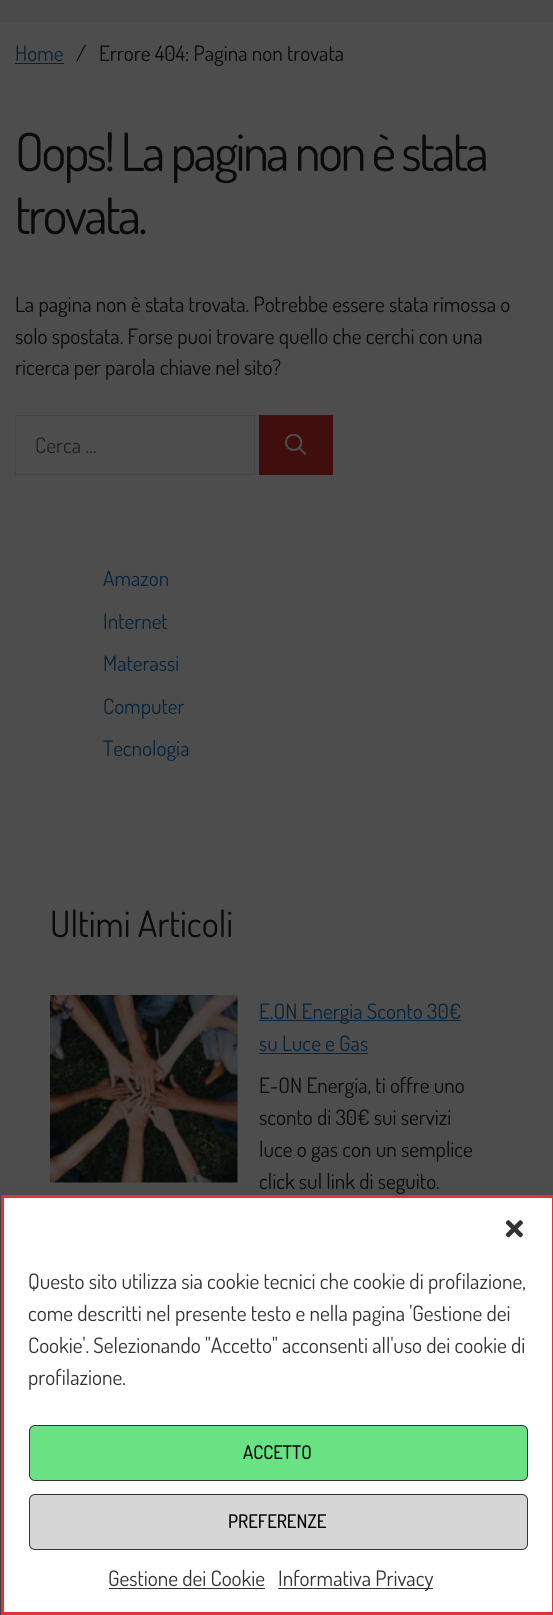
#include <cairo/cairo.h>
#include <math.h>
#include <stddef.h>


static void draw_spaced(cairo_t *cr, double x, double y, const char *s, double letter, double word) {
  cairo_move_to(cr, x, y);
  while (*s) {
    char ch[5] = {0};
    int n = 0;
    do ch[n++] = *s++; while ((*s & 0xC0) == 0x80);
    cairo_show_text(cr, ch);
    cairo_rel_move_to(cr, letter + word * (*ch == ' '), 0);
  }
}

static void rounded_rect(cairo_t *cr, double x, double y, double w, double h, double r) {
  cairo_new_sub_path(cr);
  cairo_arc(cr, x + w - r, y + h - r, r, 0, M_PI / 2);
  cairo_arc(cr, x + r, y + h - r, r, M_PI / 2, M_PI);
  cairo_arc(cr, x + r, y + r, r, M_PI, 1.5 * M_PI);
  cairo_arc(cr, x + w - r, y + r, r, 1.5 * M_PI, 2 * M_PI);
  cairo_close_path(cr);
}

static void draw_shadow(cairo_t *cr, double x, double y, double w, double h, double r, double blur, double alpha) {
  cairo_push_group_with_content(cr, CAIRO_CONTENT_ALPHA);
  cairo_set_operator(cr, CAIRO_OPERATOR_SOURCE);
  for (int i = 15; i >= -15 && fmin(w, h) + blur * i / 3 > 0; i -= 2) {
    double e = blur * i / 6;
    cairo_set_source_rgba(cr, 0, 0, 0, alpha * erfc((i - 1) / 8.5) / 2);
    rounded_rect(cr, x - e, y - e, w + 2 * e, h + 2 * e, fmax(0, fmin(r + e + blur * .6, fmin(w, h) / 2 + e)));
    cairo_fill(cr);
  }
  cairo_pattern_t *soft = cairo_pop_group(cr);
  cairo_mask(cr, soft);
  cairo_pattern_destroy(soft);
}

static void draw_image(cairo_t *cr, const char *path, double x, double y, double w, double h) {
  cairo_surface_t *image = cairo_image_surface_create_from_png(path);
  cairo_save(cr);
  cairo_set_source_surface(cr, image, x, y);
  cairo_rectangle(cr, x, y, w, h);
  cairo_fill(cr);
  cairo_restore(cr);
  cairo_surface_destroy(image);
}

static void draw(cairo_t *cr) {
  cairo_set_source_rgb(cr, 77 / 255.0, 77 / 255.0, 77 / 255.0);
  cairo_paint(cr);
  cairo_set_source_rgb(cr, 74 / 255.0, 74 / 255.0, 75 / 255.0);
  cairo_rectangle(cr, 0, 0, 553, 23);
  cairo_fill(cr);
  cairo_set_source_rgb(cr, 9 / 255.0, 35 / 255.0, 57 / 255.0);
  cairo_rectangle(cr, 15, 63, 49, 1);
  cairo_fill(cr);
  cairo_rectangle(cr, 15.5, 415.5, 239, 59);
  cairo_set_source_rgb(cr, 69 / 255.0, 69 / 255.0, 69 / 255.0);
  cairo_set_line_width(cr, 1);
  cairo_stroke(cr);
  cairo_set_source_rgb(cr, 65 / 255.0, 14 / 255.0, 14 / 255.0);
  cairo_rectangle(cr, 259, 415, 74, 60);
  cairo_fill(cr);
  draw_image(cr, "images/1.png", 285, 434, 21, 21);
  draw_image(cr, "images/2.png", 50, 995, 188, 188);
  cairo_set_source_rgb(cr, 9 / 255.0, 35 / 255.0, 57 / 255.0);
  cairo_rectangle(cr, 259, 1020, 202, 1);
  cairo_fill(cr);
  cairo_rectangle(cr, 259, 1053, 109, 1);
  cairo_fill(cr);
  cairo_set_source_rgb(cr, 0, 0, 0);
  draw_shadow(cr, 1, 1203, 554, 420, 0, 4, 0.23);
  draw_shadow(cr, 1, 1208, 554, 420, 0, 12.5, 0.19);
  cairo_set_source_rgb(cr, 1, 1, 1);
  cairo_rectangle(cr, 2.5, 1196.5, 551, 417);
  cairo_fill_preserve(cr);
  cairo_set_source_rgb(cr, 221 / 255.0, 51 / 255.0, 51 / 255.0);
  cairo_set_line_width(cr, 3);
  cairo_stroke(cr);
  draw_image(cr, "images/3.png", 505, 1220, 18, 18);
  cairo_set_source_rgb(cr, 104 / 255.0, 226 / 255.0, 130 / 255.0);
  rounded_rect(cr, 29.5, 1425.5, 498, 55, 5.5);
  cairo_fill_preserve(cr);
  cairo_set_source_rgb(cr, 51 / 255.0, 51 / 255.0, 51 / 255.0);
  cairo_set_line_width(cr, 1);
  cairo_stroke(cr);
  cairo_set_source_rgb(cr, 214 / 255.0, 214 / 255.0, 214 / 255.0);
  rounded_rect(cr, 29.5, 1494.5, 498, 55, 5.5);
  cairo_fill_preserve(cr);
  cairo_set_source_rgb(cr, 51 / 255.0, 51 / 255.0, 51 / 255.0);
  cairo_stroke(cr);
  cairo_rectangle(cr, 109, 1588, 156, 1);
  cairo_fill(cr);
  cairo_rectangle(cr, 278, 1588, 155, 1);
  cairo_fill(cr);
  cairo_select_font_face(cr, "Dosis", CAIRO_FONT_SLANT_NORMAL, CAIRO_FONT_WEIGHT_NORMAL);
  cairo_set_font_size(cr, 21.25);
  cairo_set_source_rgb(cr, 9 / 255.0, 35 / 255.0, 57 / 255.0);
  cairo_move_to(cr, 15, 61);
  cairo_show_text(cr, "Home");
  cairo_set_source_rgb(cr, 10 / 255.0, 10 / 255.0, 10 / 255.0);
  cairo_move_to(cr, 76, 61);
  cairo_show_text(cr, "/");
  cairo_move_to(cr, 99, 61);
  cairo_show_text(cr, "Errore 404: Pagina non trovata");
  cairo_set_font_size(cr, 52.5);
  draw_spaced(cr, 15, 171, "Oops! La pagina non è stata", -2.5, 0);
  draw_spaced(cr, 15, 234, "trovata.", -2.5, 0);
  cairo_set_font_size(cr, 21.25);
  cairo_move_to(cr, 15, 312);
  cairo_show_text(cr, "La pagina non è stata trovata. Potrebbe essere stata rimossa o");
  cairo_move_to(cr, 15, 344);
  cairo_show_text(cr, "solo spostata. Forse puoi trovare quello che cerchi con una");
  cairo_move_to(cr, 15, 375);
  cairo_show_text(cr, "ricerca per parola chiave nel sito?");
  cairo_set_source_rgb(cr, 35 / 255.0, 35 / 255.0, 35 / 255.0);
  cairo_move_to(cr, 35, 453);
  cairo_show_text(cr, "Cerca …");
  cairo_set_source_rgb(cr, 9 / 255.0, 35 / 255.0, 57 / 255.0);
  cairo_move_to(cr, 103, 586);
  cairo_show_text(cr, "Amazon");
  cairo_move_to(cr, 103, 629);
  cairo_show_text(cr, "Internet");
  cairo_move_to(cr, 103, 671);
  cairo_show_text(cr, "Materassi");
  cairo_move_to(cr, 103, 714);
  cairo_show_text(cr, "Computer");
  cairo_move_to(cr, 103, 756);
  cairo_show_text(cr, "Tecnologia");
  cairo_set_font_size(cr, 36.25);
  cairo_set_source_rgb(cr, 10 / 255.0, 10 / 255.0, 10 / 255.0);
  cairo_move_to(cr, 50, 937);
  cairo_show_text(cr, "Ultimi Articoli");
  cairo_set_font_size(cr, 21.25);
  cairo_set_source_rgb(cr, 9 / 255.0, 35 / 255.0, 57 / 255.0);
  cairo_move_to(cr, 259, 1019);
  cairo_show_text(cr, "E.ON Energia Sconto 30€");
  cairo_move_to(cr, 259, 1051);
  cairo_show_text(cr, "su Luce e Gas");
  cairo_set_source_rgb(cr, 10 / 255.0, 10 / 255.0, 10 / 255.0);
  cairo_move_to(cr, 259, 1093);
  cairo_show_text(cr, "E-ON Energia, ti offre uno");
  cairo_move_to(cr, 259, 1125);
  cairo_show_text(cr, "sconto di 30€ sui servizi");
  cairo_move_to(cr, 259, 1157);
  cairo_show_text(cr, "luce o gas con un semplice");
  cairo_move_to(cr, 259, 1189);
  cairo_show_text(cr, "click sul link di seguito.");
  cairo_set_source_rgb(cr, 51 / 255.0, 51 / 255.0, 51 / 255.0);
  cairo_move_to(cr, 28, 1289);
  cairo_show_text(cr, "Questo sito utilizza sia cookie tecnici che cookie di profilazione,");
  cairo_save(cr);
  cairo_rectangle(cr, 29, 1266, 499, 134);
  cairo_clip(cr);
  cairo_move_to(cr, 28, 1321);
  cairo_show_text(cr, "come descritti nel presente testo e nella pagina 'Gestione dei");
  cairo_restore(cr);
  cairo_move_to(cr, 28, 1353);
  cairo_show_text(cr, "Cookie'. Selezionando \"Accetto\" acconsenti all'uso dei cookie di");
  cairo_save(cr);
  cairo_rectangle(cr, 29, 1266, 499, 134);
  cairo_clip(cr);
  cairo_move_to(cr, 28, 1385);
  cairo_show_text(cr, "profilazione.");
  cairo_restore(cr);
  cairo_select_font_face(cr, "Dosis Medium", CAIRO_FONT_SLANT_NORMAL, CAIRO_FONT_WEIGHT_NORMAL);
  cairo_set_font_size(cr, 18.75);
  cairo_set_source_rgb(cr, 0, 0, 0);
  cairo_move_to(cr, 243, 1459);
  cairo_show_text(cr, "ACCETTO");
  cairo_move_to(cr, 228, 1528);
  cairo_show_text(cr, "PREFERENZE");
  cairo_select_font_face(cr, "Dosis", CAIRO_FONT_SLANT_NORMAL, CAIRO_FONT_WEIGHT_NORMAL);
  cairo_set_font_size(cr, 21.25);
  cairo_set_source_rgb(cr, 51 / 255.0, 51 / 255.0, 51 / 255.0);
  cairo_move_to(cr, 108, 1586);
  cairo_show_text(cr, "Gestione dei Cookie");
  cairo_move_to(cr, 278, 1586);
  cairo_show_text(cr, "Informativa Privacy");
}

int main(void) {
  cairo_surface_t *surface = cairo_image_surface_create(CAIRO_FORMAT_RGB24, 553, 1615);
  cairo_t *cr = cairo_create(surface);
  cairo_font_options_t *options = cairo_font_options_create();
  cairo_font_options_set_hint_metrics(options, CAIRO_HINT_METRICS_OFF);
  cairo_font_options_set_hint_style(options, CAIRO_HINT_STYLE_NONE);
  cairo_set_font_options(cr, options);
  cairo_set_miter_limit(cr, 4);
  draw(cr);
  cairo_surface_write_to_png(surface, "out.png");
  cairo_font_options_destroy(options);
  cairo_destroy(cr);
  cairo_surface_destroy(surface);
  return 0;
}
